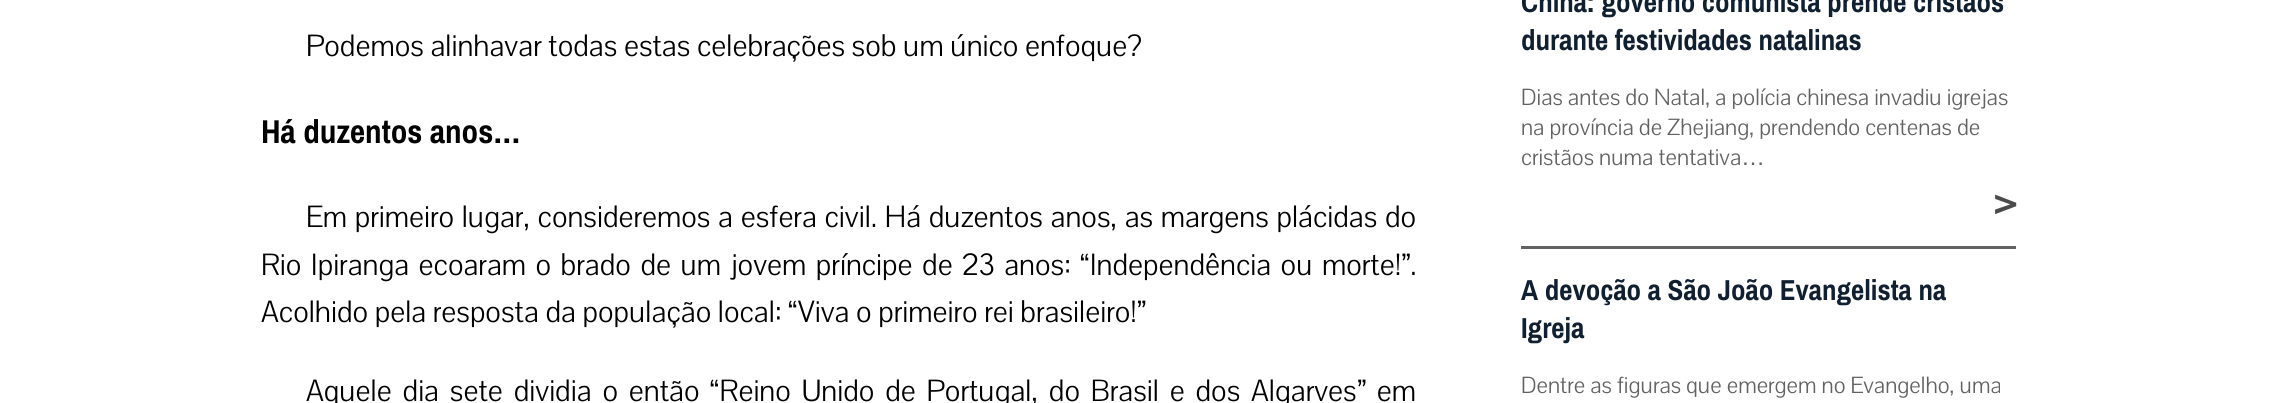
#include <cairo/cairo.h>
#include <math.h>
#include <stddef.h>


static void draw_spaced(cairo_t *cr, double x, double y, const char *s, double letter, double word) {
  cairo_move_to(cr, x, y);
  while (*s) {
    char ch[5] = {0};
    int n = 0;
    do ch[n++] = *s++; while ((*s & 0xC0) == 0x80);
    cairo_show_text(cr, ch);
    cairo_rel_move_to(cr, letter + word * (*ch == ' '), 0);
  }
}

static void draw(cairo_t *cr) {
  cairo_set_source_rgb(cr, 1, 1, 1);
  cairo_paint(cr);
  cairo_set_source_rgb(cr, 98 / 255.0, 98 / 255.0, 98 / 255.0);
  cairo_rectangle(cr, 1521, 246, 495, 3);
  cairo_fill(cr);
  cairo_select_font_face(cr, "Pavanam", CAIRO_FONT_SLANT_NORMAL, CAIRO_FONT_WEIGHT_NORMAL);
  cairo_set_font_size(cr, 31.5);
  cairo_set_source_rgb(cr, 0, 0, 0);
  cairo_move_to(cr, 306, 56);
  cairo_show_text(cr, "Podemos alinhavar todas estas celebrações sob um único enfoque?");
  cairo_select_font_face(cr, "Pragati Narrow", CAIRO_FONT_SLANT_NORMAL, CAIRO_FONT_WEIGHT_BOLD);
  cairo_set_font_size(cr, 36);
  cairo_move_to(cr, 261, 143);
  cairo_show_text(cr, "Há duzentos anos…");
  cairo_select_font_face(cr, "Pavanam", CAIRO_FONT_SLANT_NORMAL, CAIRO_FONT_WEIGHT_NORMAL);
  cairo_set_font_size(cr, 31.5);
  draw_spaced(cr, 306, 227, "Em primeiro lugar, consideremos a esfera civil. Há duzentos anos, as margens plácidas do", 0, 1.1);
  draw_spaced(cr, 261, 275, "Rio Ipiranga ecoaram o brado de um jovem príncipe de 23 anos: “Independência ou morte!”.", 0, 2.9);
  cairo_move_to(cr, 261, 322);
  cairo_show_text(cr, "Acolhido pela resposta da população local: “Viva o primeiro rei brasileiro!”");
  draw_spaced(cr, 306, 401, "Aquele dia sete dividia o então “Reino Unido de Portugal, do Brasil e dos Algarves” em", 0, 4.25);
  cairo_select_font_face(cr, "Pragati Narrow", CAIRO_FONT_SLANT_NORMAL, CAIRO_FONT_WEIGHT_BOLD);
  cairo_set_source_rgb(cr, 16 / 255.0, 32 / 255.0, 49 / 255.0);
  cairo_move_to(cr, 1521, 12);
  cairo_show_text(cr, "China: governo comunista prende cristãos");
  cairo_move_to(cr, 1521, 50);
  cairo_show_text(cr, "durante festividades natalinas");
  cairo_select_font_face(cr, "Pavanam", CAIRO_FONT_SLANT_NORMAL, CAIRO_FONT_WEIGHT_NORMAL);
  cairo_set_font_size(cr, 24);
  cairo_set_source_rgb(cr, 98 / 255.0, 98 / 255.0, 98 / 255.0);
  cairo_move_to(cr, 1521, 105);
  cairo_show_text(cr, "Dias antes do Natal, a polícia chinesa invadiu igrejas");
  cairo_move_to(cr, 1521, 135);
  cairo_show_text(cr, "na província de Zhejiang, prendendo centenas de");
  cairo_move_to(cr, 1521, 165);
  cairo_show_text(cr, "cristãos numa tentativa");
  cairo_select_font_face(cr, "Liberation Sans", CAIRO_FONT_SLANT_NORMAL, CAIRO_FONT_WEIGHT_NORMAL);
  cairo_move_to(cr, 1741, 165);
  cairo_show_text(cr, "…");
  cairo_select_font_face(cr, "Pavanam", CAIRO_FONT_SLANT_NORMAL, CAIRO_FONT_WEIGHT_BOLD);
  cairo_set_font_size(cr, 45);
  cairo_set_source_rgb(cr, 75 / 255.0, 75 / 255.0, 75 / 255.0);
  cairo_move_to(cr, 1994, 216);
  cairo_show_text(cr, ">");
  cairo_select_font_face(cr, "Pragati Narrow", CAIRO_FONT_SLANT_NORMAL, CAIRO_FONT_WEIGHT_BOLD);
  cairo_set_font_size(cr, 31.5);
  cairo_set_source_rgb(cr, 16 / 255.0, 32 / 255.0, 49 / 255.0);
  cairo_move_to(cr, 1521, 300);
  cairo_show_text(cr, "A devoção a São João Evangelista na");
  cairo_move_to(cr, 1521, 338);
  cairo_show_text(cr, "Igreja");
  cairo_select_font_face(cr, "Pavanam", CAIRO_FONT_SLANT_NORMAL, CAIRO_FONT_WEIGHT_NORMAL);
  cairo_set_font_size(cr, 24);
  cairo_set_source_rgb(cr, 98 / 255.0, 98 / 255.0, 98 / 255.0);
  cairo_move_to(cr, 1521, 393);
  cairo_show_text(cr, "Dentre as figuras que emergem no Evangelho, uma");
}

int main(void) {
  cairo_surface_t *surface = cairo_image_surface_create(CAIRO_FORMAT_RGB24, 2277, 403);
  cairo_t *cr = cairo_create(surface);
  cairo_font_options_t *options = cairo_font_options_create();
  cairo_font_options_set_hint_metrics(options, CAIRO_HINT_METRICS_OFF);
  cairo_font_options_set_hint_style(options, CAIRO_HINT_STYLE_NONE);
  cairo_set_font_options(cr, options);
  cairo_set_miter_limit(cr, 4);
  draw(cr);
  cairo_surface_write_to_png(surface, "out.png");
  cairo_font_options_destroy(options);
  cairo_destroy(cr);
  cairo_surface_destroy(surface);
  return 0;
}
